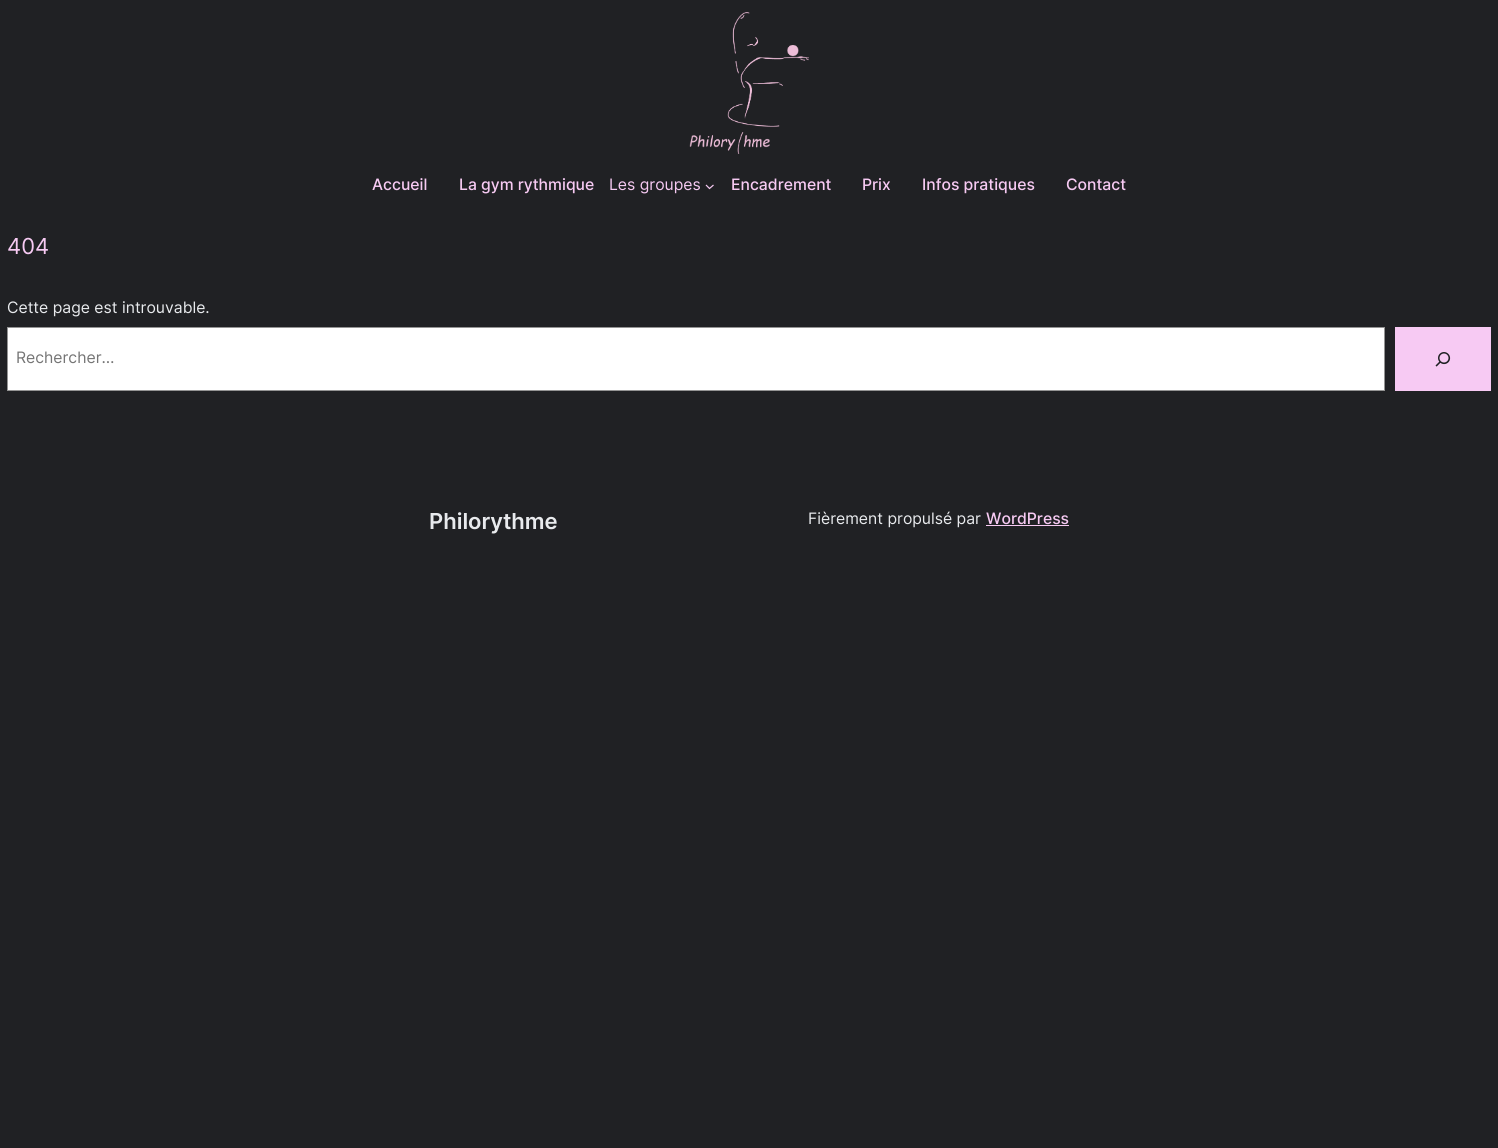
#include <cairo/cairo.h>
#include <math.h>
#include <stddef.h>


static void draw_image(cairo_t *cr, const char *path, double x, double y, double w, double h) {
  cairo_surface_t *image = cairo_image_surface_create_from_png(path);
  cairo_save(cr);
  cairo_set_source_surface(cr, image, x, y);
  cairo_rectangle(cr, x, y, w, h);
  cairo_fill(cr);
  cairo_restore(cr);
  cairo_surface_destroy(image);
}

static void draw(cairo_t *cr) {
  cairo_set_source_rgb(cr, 32 / 255.0, 33 / 255.0, 36 / 255.0);
  cairo_paint(cr);
  draw_image(cr, "images/1.png", 689, 12, 120, 142);
  cairo_new_path(cr);
  cairo_move_to(cr, 706, 185);
  cairo_line_to(cr, 709.5, 188.5);
  cairo_line_to(cr, 713.5, 185);
  cairo_set_source_rgb(cr, 247 / 255.0, 202 / 255.0, 243 / 255.0);
  cairo_set_line_width(cr, 1.2);
  cairo_stroke(cr);
  cairo_set_source_rgb(cr, 1, 1, 1);
  cairo_rectangle(cr, 7.5, 327.5, 1377, 63);
  cairo_fill_preserve(cr);
  cairo_set_source_rgb(cr, 148 / 255.0, 148 / 255.0, 148 / 255.0);
  cairo_set_line_width(cr, 1);
  cairo_stroke(cr);
  cairo_set_source_rgb(cr, 247 / 255.0, 202 / 255.0, 243 / 255.0);
  cairo_rectangle(cr, 1395, 327, 96, 64);
  cairo_fill(cr);
  draw_image(cr, "images/2.png", 1435, 352, 16, 15);
  cairo_rectangle(cr, 986, 525, 83, 1);
  cairo_fill(cr);
  cairo_select_font_face(cr, "Inter Medium", CAIRO_FONT_SLANT_NORMAL, CAIRO_FONT_WEIGHT_NORMAL);
  cairo_set_font_size(cr, 15.75);
  cairo_move_to(cr, 372, 190);
  cairo_show_text(cr, "Accueil");
  cairo_move_to(cr, 459, 190);
  cairo_show_text(cr, "La gym rythmique");
  cairo_select_font_face(cr, "Inter", CAIRO_FONT_SLANT_NORMAL, CAIRO_FONT_WEIGHT_NORMAL);
  cairo_move_to(cr, 609, 190);
  cairo_show_text(cr, "Les groupes");
  cairo_select_font_face(cr, "Inter Medium", CAIRO_FONT_SLANT_NORMAL, CAIRO_FONT_WEIGHT_NORMAL);
  cairo_move_to(cr, 731, 190);
  cairo_show_text(cr, "Encadrement");
  cairo_move_to(cr, 862, 190);
  cairo_show_text(cr, "Prix");
  cairo_move_to(cr, 922, 190);
  cairo_show_text(cr, "Infos pratiques");
  cairo_move_to(cr, 1066, 190);
  cairo_show_text(cr, "Contact");
  cairo_select_font_face(cr, "Inter", CAIRO_FONT_SLANT_NORMAL, CAIRO_FONT_WEIGHT_NORMAL);
  cairo_set_font_size(cr, 22);
  cairo_move_to(cr, 7, 254);
  cairo_show_text(cr, "404");
  cairo_set_font_size(cr, 15.75);
  cairo_set_source_rgb(cr, 232 / 255.0, 234 / 255.0, 237 / 255.0);
  cairo_move_to(cr, 7, 313);
  cairo_show_text(cr, "Cette page est introuvable.");
  cairo_set_source_rgb(cr, 117 / 255.0, 117 / 255.0, 117 / 255.0);
  cairo_move_to(cr, 16, 363);
  cairo_show_text(cr, "Rechercher…");
  cairo_select_font_face(cr, "Inter SemiBold", CAIRO_FONT_SLANT_NORMAL, CAIRO_FONT_WEIGHT_NORMAL);
  cairo_set_font_size(cr, 22);
  cairo_set_source_rgb(cr, 232 / 255.0, 234 / 255.0, 237 / 255.0);
  cairo_move_to(cr, 429, 529);
  cairo_show_text(cr, "Philorythme");
  cairo_select_font_face(cr, "Inter", CAIRO_FONT_SLANT_NORMAL, CAIRO_FONT_WEIGHT_NORMAL);
  cairo_set_font_size(cr, 15.75);
  cairo_move_to(cr, 808, 524);
  cairo_show_text(cr, "Fièrement propulsé par");
  cairo_select_font_face(cr, "Inter Medium", CAIRO_FONT_SLANT_NORMAL, CAIRO_FONT_WEIGHT_NORMAL);
  cairo_set_source_rgb(cr, 247 / 255.0, 202 / 255.0, 243 / 255.0);
  cairo_move_to(cr, 986, 524);
  cairo_show_text(cr, "WordPress");
}

int main(void) {
  cairo_surface_t *surface = cairo_image_surface_create(CAIRO_FORMAT_RGB24, 1498, 1148);
  cairo_t *cr = cairo_create(surface);
  cairo_font_options_t *options = cairo_font_options_create();
  cairo_font_options_set_hint_metrics(options, CAIRO_HINT_METRICS_OFF);
  cairo_font_options_set_hint_style(options, CAIRO_HINT_STYLE_NONE);
  cairo_set_font_options(cr, options);
  cairo_set_miter_limit(cr, 4);
  draw(cr);
  cairo_surface_write_to_png(surface, "out.png");
  cairo_font_options_destroy(options);
  cairo_destroy(cr);
  cairo_surface_destroy(surface);
  return 0;
}
